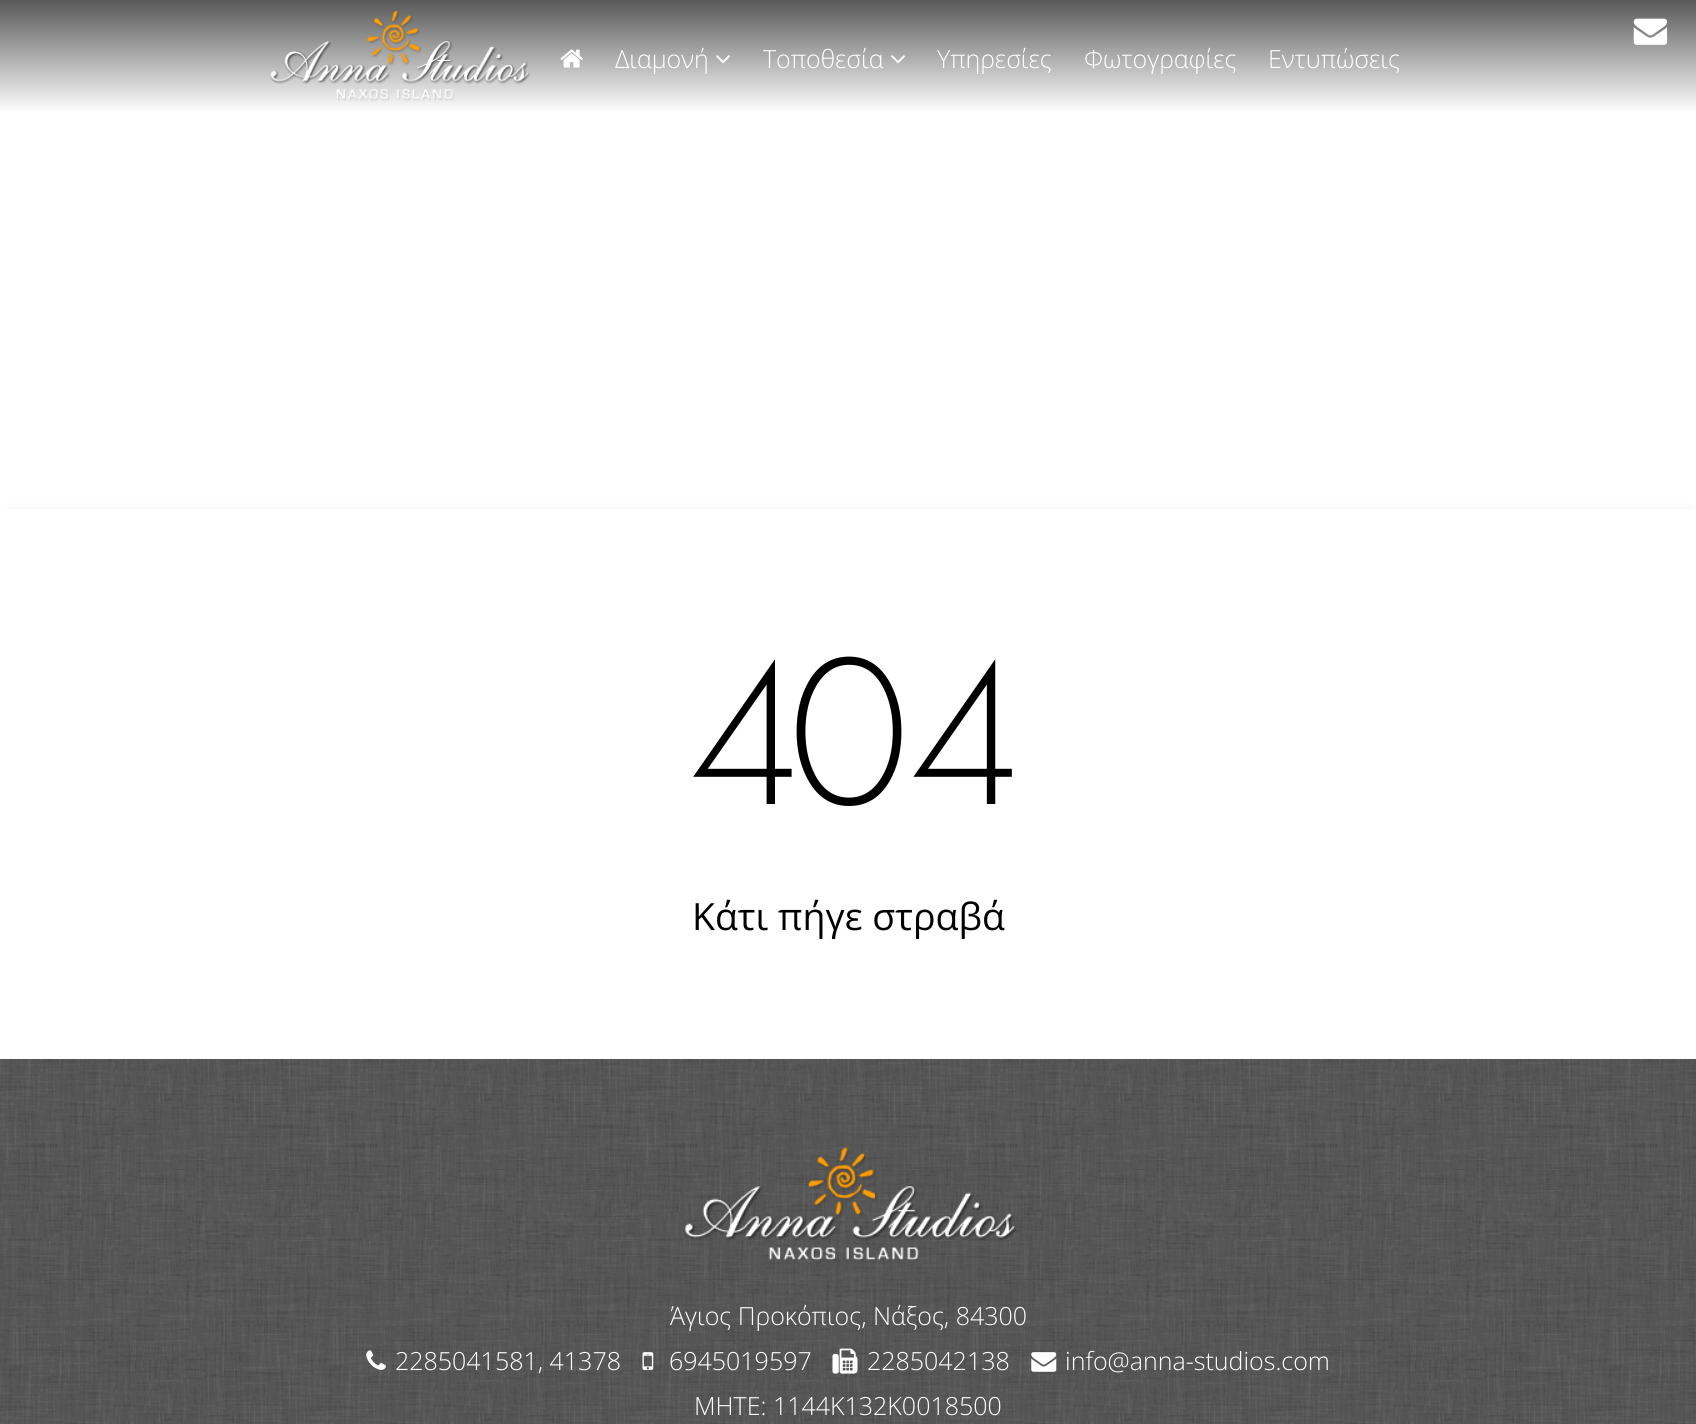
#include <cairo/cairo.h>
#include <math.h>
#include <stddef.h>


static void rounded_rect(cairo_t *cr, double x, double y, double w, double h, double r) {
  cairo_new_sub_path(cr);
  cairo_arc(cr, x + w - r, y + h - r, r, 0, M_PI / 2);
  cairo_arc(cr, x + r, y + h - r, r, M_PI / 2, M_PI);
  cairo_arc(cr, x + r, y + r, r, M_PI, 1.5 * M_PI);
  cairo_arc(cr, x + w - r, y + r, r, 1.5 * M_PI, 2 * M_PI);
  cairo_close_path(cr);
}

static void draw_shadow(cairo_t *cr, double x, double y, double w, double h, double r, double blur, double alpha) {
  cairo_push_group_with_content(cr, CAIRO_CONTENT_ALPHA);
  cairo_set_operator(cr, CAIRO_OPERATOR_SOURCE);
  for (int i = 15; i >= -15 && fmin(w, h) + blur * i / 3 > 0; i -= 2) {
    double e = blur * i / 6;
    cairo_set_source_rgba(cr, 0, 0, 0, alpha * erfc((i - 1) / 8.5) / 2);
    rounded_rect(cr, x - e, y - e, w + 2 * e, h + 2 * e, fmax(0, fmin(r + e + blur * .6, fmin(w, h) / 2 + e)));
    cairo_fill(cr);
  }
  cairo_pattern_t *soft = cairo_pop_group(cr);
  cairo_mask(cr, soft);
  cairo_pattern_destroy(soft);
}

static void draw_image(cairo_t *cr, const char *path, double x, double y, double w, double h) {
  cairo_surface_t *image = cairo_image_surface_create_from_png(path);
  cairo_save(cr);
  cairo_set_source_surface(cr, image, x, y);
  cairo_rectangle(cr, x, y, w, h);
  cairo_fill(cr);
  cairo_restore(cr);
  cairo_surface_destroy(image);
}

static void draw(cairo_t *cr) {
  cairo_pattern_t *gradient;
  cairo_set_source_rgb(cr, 1, 1, 1);
  cairo_paint(cr);
  gradient = cairo_pattern_create_linear(848, 0, 848, 119);
  cairo_pattern_add_color_stop_rgba(gradient, 0, 89 / 255.0, 89 / 255.0, 89 / 255.0, 1);
  cairo_pattern_add_color_stop_rgba(gradient, 0.95, 1, 1, 1, 1);
  cairo_set_source(cr, gradient);
  cairo_pattern_destroy(gradient);
  cairo_rectangle(cr, 0, 0, 1696, 111);
  cairo_fill(cr);
  draw_image(cr, "images/1.png", 1633, 18, 35, 27);
  draw_image(cr, "images/2.png", 270, 10, 260, 91);
  draw_image(cr, "images/3.png", 560, 49, 23, 19);
  draw_image(cr, "images/4.png", 716, 55, 14, 9);
  draw_image(cr, "images/4.png", 891, 55, 14, 9);
  cairo_save(cr);
  cairo_set_fill_rule(cr, CAIRO_FILL_RULE_EVEN_ODD);
  cairo_new_path(cr);
  cairo_move_to(cr, 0, 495);
  cairo_line_to(cr, 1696, 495);
  cairo_line_to(cr, 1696, 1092);
  cairo_line_to(cr, 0, 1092);
  cairo_close_path(cr);
  cairo_move_to(cr, 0, 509);
  cairo_line_to(cr, 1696, 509);
  cairo_line_to(cr, 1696, 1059);
  cairo_line_to(cr, 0, 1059);
  cairo_close_path(cr);
  cairo_clip(cr);
  cairo_set_source_rgb(cr, 91 / 255.0, 91 / 255.0, 91 / 255.0);
  draw_shadow(cr, 8, 526, 1681, 535, 0, 10, 1);
  cairo_restore(cr);
  cairo_set_source_rgb(cr, 81 / 255.0, 81 / 255.0, 81 / 255.0);
  cairo_rectangle(cr, 0, 1059, 1696, 365);
  cairo_fill(cr);
  draw_image(cr, "images/5.png", 0, 1058, 1696, 366);
  draw_image(cr, "images/6.png", 684, 1147, 332, 114);
  draw_image(cr, "images/7.png", 366, 1350, 20, 20);
  draw_image(cr, "images/8.png", 642, 1352, 12, 18);
  draw_image(cr, "images/9.png", 832, 1348, 26, 26);
  draw_image(cr, "images/10.png", 1031, 1352, 26, 20);
  cairo_select_font_face(cr, "Open Sans Light", CAIRO_FONT_SLANT_NORMAL, CAIRO_FONT_WEIGHT_NORMAL);
  cairo_set_font_size(cr, 25);
  cairo_set_source_rgb(cr, 1, 1, 1);
  cairo_move_to(cr, 615, 68);
  cairo_show_text(cr, "Διαμονή");
  cairo_move_to(cr, 763, 68);
  cairo_show_text(cr, "Τοποθεσία");
  cairo_move_to(cr, 937, 68);
  cairo_show_text(cr, "Υπηρεσίες");
  cairo_move_to(cr, 1084, 68);
  cairo_show_text(cr, "Φωτογραφίες");
  cairo_move_to(cr, 1268, 68);
  cairo_show_text(cr, "Εντυπώσεις");
  cairo_select_font_face(cr, "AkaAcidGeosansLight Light", CAIRO_FONT_SLANT_NORMAL, CAIRO_FONT_WEIGHT_NORMAL);
  cairo_set_font_size(cr, 200);
  cairo_set_source_rgb(cr, 0, 0, 0);
  cairo_move_to(cr, 684, 804);
  cairo_show_text(cr, "404");
  cairo_select_font_face(cr, "Open Sans", CAIRO_FONT_SLANT_NORMAL, CAIRO_FONT_WEIGHT_NORMAL);
  cairo_set_font_size(cr, 37.5);
  cairo_move_to(cr, 692, 930);
  cairo_show_text(cr, "Κάτι πήγε στραβά");
  cairo_select_font_face(cr, "Open Sans Light", CAIRO_FONT_SLANT_NORMAL, CAIRO_FONT_WEIGHT_NORMAL);
  cairo_set_font_size(cr, 25);
  cairo_set_source_rgb(cr, 1, 1, 1);
  cairo_move_to(cr, 670, 1325);
  cairo_show_text(cr, "Άγιος Προκόπιος, Νάξος, 84300");
  cairo_move_to(cr, 395, 1370);
  cairo_show_text(cr, "2285041581, 41378");
  cairo_move_to(cr, 669, 1370);
  cairo_show_text(cr, "6945019597");
  cairo_move_to(cr, 867, 1370);
  cairo_show_text(cr, "2285042138");
  cairo_move_to(cr, 1065, 1370);
  cairo_show_text(cr, "info@anna-studios.com");
  cairo_move_to(cr, 694, 1415);
  cairo_show_text(cr, "MHTE: 1144K132K0018500");
}

int main(void) {
  cairo_surface_t *surface = cairo_image_surface_create(CAIRO_FORMAT_RGB24, 1696, 1424);
  cairo_t *cr = cairo_create(surface);
  cairo_font_options_t *options = cairo_font_options_create();
  cairo_font_options_set_hint_metrics(options, CAIRO_HINT_METRICS_OFF);
  cairo_font_options_set_hint_style(options, CAIRO_HINT_STYLE_NONE);
  cairo_set_font_options(cr, options);
  cairo_set_miter_limit(cr, 4);
  draw(cr);
  cairo_surface_write_to_png(surface, "out.png");
  cairo_font_options_destroy(options);
  cairo_destroy(cr);
  cairo_surface_destroy(surface);
  return 0;
}
